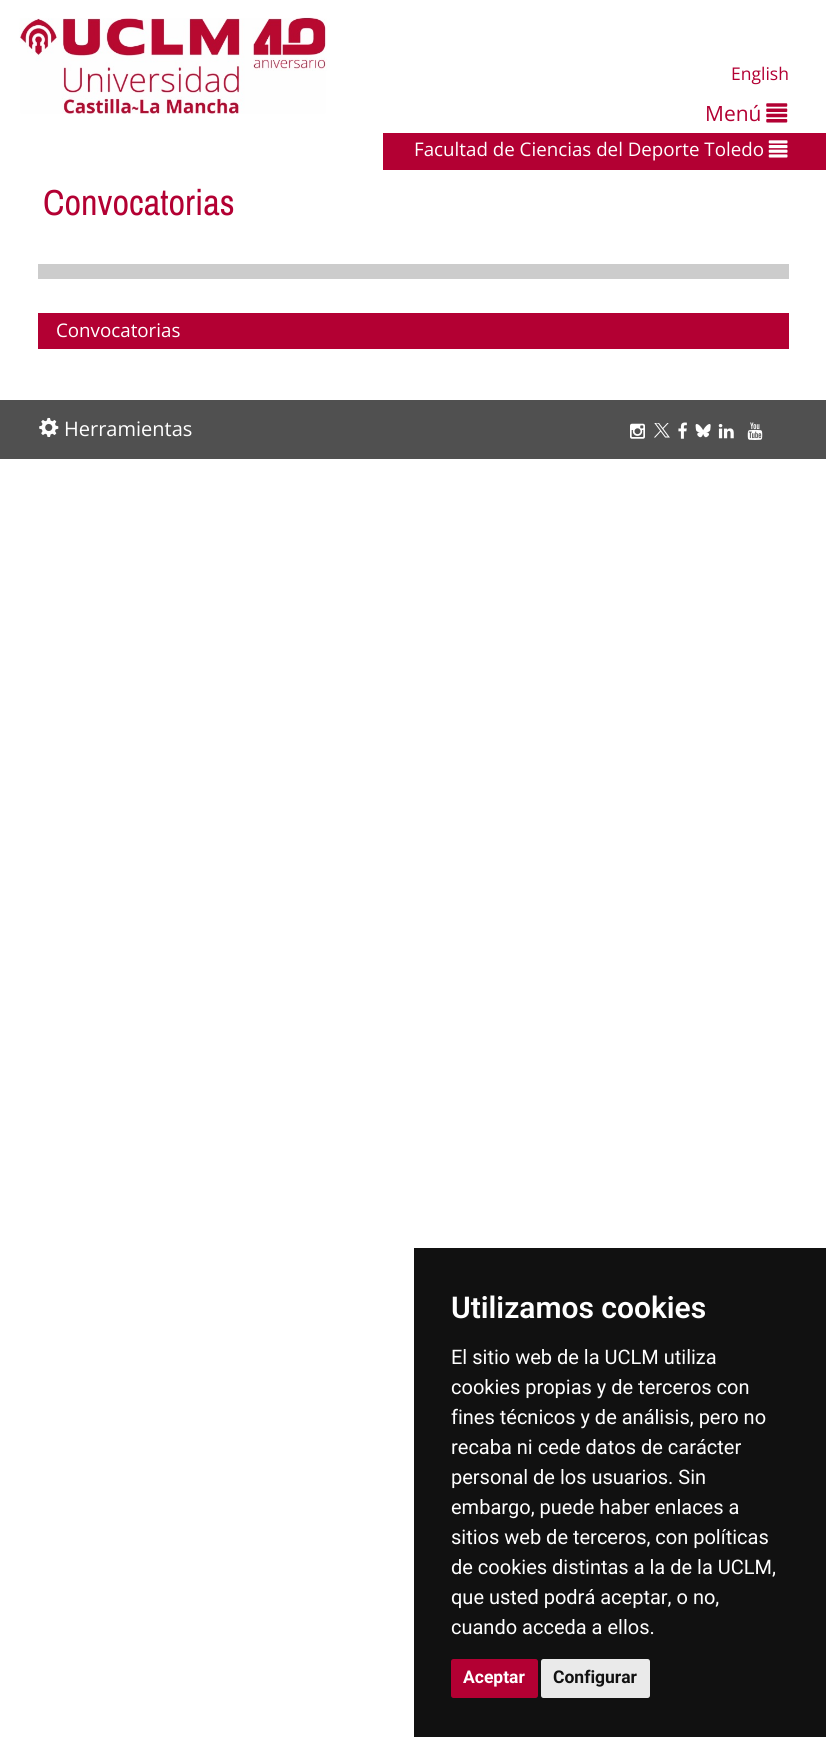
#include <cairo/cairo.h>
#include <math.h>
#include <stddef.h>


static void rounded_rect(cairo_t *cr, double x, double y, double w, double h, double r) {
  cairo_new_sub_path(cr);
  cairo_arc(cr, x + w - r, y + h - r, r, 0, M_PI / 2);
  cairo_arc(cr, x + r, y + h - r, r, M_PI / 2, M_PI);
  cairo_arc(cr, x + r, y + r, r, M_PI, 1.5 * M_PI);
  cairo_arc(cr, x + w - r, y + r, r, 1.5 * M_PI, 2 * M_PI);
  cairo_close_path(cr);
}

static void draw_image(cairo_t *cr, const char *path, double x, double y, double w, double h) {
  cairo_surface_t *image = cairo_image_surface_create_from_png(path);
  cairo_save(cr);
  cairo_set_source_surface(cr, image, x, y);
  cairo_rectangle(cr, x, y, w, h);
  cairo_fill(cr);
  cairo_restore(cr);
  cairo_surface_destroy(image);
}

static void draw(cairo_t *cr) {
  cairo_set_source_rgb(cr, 1, 1, 1);
  cairo_paint(cr);
  draw_image(cr, "images/1.png", 19, 17, 311, 97);
  draw_image(cr, "images/2.png", 766, 103, 22, 20);
  cairo_set_source_rgb(cr, 179 / 255.0, 0, 51 / 255.0);
  cairo_rectangle(cr, 383, 133, 443, 37);
  cairo_fill(cr);
  draw_image(cr, "images/3.png", 768, 140, 20, 18);
  cairo_set_source_rgb(cr, 204 / 255.0, 204 / 255.0, 204 / 255.0);
  cairo_rectangle(cr, 38, 264, 751, 15);
  cairo_fill(cr);
  cairo_set_source_rgb(cr, 179 / 255.0, 0, 51 / 255.0);
  cairo_rectangle(cr, 38, 313, 751, 36);
  cairo_fill(cr);
  cairo_set_source_rgb(cr, 80 / 255.0, 80 / 255.0, 80 / 255.0);
  cairo_rectangle(cr, 0, 400, 826, 59);
  cairo_fill(cr);
  draw_image(cr, "images/4.png", 39, 417, 20, 21);
  draw_image(cr, "images/5.png", 630, 423, 15, 16);
  draw_image(cr, "images/6.png", 654, 423, 16, 15);
  draw_image(cr, "images/7.png", 678, 422, 9, 17);
  draw_image(cr, "images/8.png", 695, 424, 16, 14);
  draw_image(cr, "images/9.png", 718, 424, 16, 15);
  draw_image(cr, "images/10.png", 747, 422, 16, 18);
  cairo_set_source_rgb(cr, 17 / 255.0, 17 / 255.0, 17 / 255.0);
  cairo_rectangle(cr, 414, 1248, 412, 489);
  cairo_fill(cr);
  cairo_set_source_rgb(cr, 179 / 255.0, 0, 51 / 255.0);
  rounded_rect(cr, 451, 1659, 87, 39, 2.5);
  cairo_fill(cr);
  cairo_set_source_rgb(cr, 234 / 255.0, 234 / 255.0, 234 / 255.0);
  rounded_rect(cr, 541, 1659, 109, 39, 2.5);
  cairo_fill(cr);
  cairo_select_font_face(cr, "Open Sans", CAIRO_FONT_SLANT_NORMAL, CAIRO_FONT_WEIGHT_NORMAL);
  cairo_set_font_size(cr, 17.5);
  cairo_set_source_rgb(cr, 179 / 255.0, 0, 51 / 255.0);
  cairo_move_to(cr, 731, 80);
  cairo_show_text(cr, "English");
  cairo_set_font_size(cr, 21);
  cairo_move_to(cr, 705, 121);
  cairo_show_text(cr, "Menú");
  cairo_set_font_size(cr, 18.75);
  cairo_set_source_rgb(cr, 1, 1, 1);
  cairo_move_to(cr, 414, 156);
  cairo_show_text(cr, "Facultad de Ciencias del Deporte Toledo");
  cairo_select_font_face(cr, "Archivo Narrow", CAIRO_FONT_SLANT_NORMAL, CAIRO_FONT_WEIGHT_NORMAL);
  cairo_set_font_size(cr, 36.25);
  cairo_set_source_rgb(cr, 179 / 255.0, 0, 51 / 255.0);
  cairo_move_to(cr, 43, 215);
  cairo_show_text(cr, "Convocatorias");
  cairo_select_font_face(cr, "Open Sans", CAIRO_FONT_SLANT_NORMAL, CAIRO_FONT_WEIGHT_NORMAL);
  cairo_set_font_size(cr, 18.75);
  cairo_set_source_rgb(cr, 1, 1, 1);
  cairo_move_to(cr, 56, 337);
  cairo_show_text(cr, "Convocatorias");
  cairo_set_font_size(cr, 20);
  cairo_move_to(cr, 64, 436);
  cairo_show_text(cr, "Herramientas");
  cairo_select_font_face(cr, "Roboto SemiBold", CAIRO_FONT_SLANT_NORMAL, CAIRO_FONT_WEIGHT_NORMAL);
  cairo_set_font_size(cr, 30);
  cairo_move_to(cr, 451, 1318);
  cairo_show_text(cr, "Utilizamos cookies");
  cairo_select_font_face(cr, "Roboto", CAIRO_FONT_SLANT_NORMAL, CAIRO_FONT_WEIGHT_NORMAL);
  cairo_set_font_size(cr, 20);
  cairo_move_to(cr, 451, 1364);
  cairo_show_text(cr, "El sitio web de la UCLM utiliza");
  cairo_move_to(cr, 451, 1394);
  cairo_show_text(cr, "cookies propias y de terceros con");
  cairo_move_to(cr, 451, 1424);
  cairo_show_text(cr, "fines técnicos y de análisis, pero no");
  cairo_move_to(cr, 451, 1454);
  cairo_show_text(cr, "recaba ni cede datos de carácter");
  cairo_move_to(cr, 451, 1484);
  cairo_show_text(cr, "personal de los usuarios. Sin");
  cairo_move_to(cr, 451, 1514);
  cairo_show_text(cr, "embargo, puede haber enlaces a");
  cairo_move_to(cr, 451, 1544);
  cairo_show_text(cr, "sitios web de terceros, con políticas");
  cairo_move_to(cr, 451, 1574);
  cairo_show_text(cr, "de cookies distintas a la de la UCLM,");
  cairo_move_to(cr, 451, 1604);
  cairo_show_text(cr, "que usted podrá aceptar, o no,");
  cairo_move_to(cr, 451, 1634);
  cairo_show_text(cr, "cuando acceda a ellos.");
  cairo_select_font_face(cr, "Roboto", CAIRO_FONT_SLANT_NORMAL, CAIRO_FONT_WEIGHT_BOLD);
  cairo_set_font_size(cr, 17.5);
  cairo_move_to(cr, 463, 1683);
  cairo_show_text(cr, "Aceptar");
  cairo_set_source_rgb(cr, 17 / 255.0, 17 / 255.0, 17 / 255.0);
  cairo_move_to(cr, 553, 1683);
  cairo_show_text(cr, "Configurar");
}

int main(void) {
  cairo_surface_t *surface = cairo_image_surface_create(CAIRO_FORMAT_RGB24, 826, 1737);
  cairo_t *cr = cairo_create(surface);
  cairo_font_options_t *options = cairo_font_options_create();
  cairo_font_options_set_hint_metrics(options, CAIRO_HINT_METRICS_OFF);
  cairo_font_options_set_hint_style(options, CAIRO_HINT_STYLE_NONE);
  cairo_set_font_options(cr, options);
  cairo_set_miter_limit(cr, 4);
  draw(cr);
  cairo_surface_write_to_png(surface, "out.png");
  cairo_font_options_destroy(options);
  cairo_destroy(cr);
  cairo_surface_destroy(surface);
  return 0;
}
